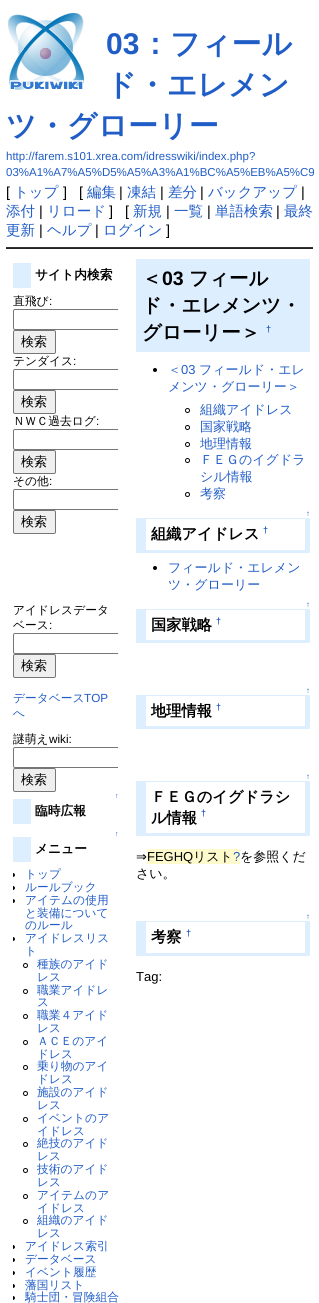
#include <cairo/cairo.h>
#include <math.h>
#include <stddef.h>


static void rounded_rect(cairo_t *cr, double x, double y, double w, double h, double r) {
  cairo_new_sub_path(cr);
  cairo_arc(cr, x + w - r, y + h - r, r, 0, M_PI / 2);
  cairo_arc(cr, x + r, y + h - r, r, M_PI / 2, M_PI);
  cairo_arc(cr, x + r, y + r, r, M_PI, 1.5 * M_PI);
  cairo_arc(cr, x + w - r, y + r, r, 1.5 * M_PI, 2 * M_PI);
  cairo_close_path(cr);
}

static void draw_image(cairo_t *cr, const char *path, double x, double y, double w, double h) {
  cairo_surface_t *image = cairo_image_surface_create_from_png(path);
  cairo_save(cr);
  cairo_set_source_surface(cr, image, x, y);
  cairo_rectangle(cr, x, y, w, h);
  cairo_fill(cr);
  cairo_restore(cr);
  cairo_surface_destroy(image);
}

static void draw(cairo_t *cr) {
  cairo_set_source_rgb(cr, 1, 1, 1);
  cairo_paint(cr);
  draw_image(cr, "images/1.png", 8, 13, 76, 77);
  cairo_set_source_rgb(cr, 51 / 255.0, 51 / 255.0, 51 / 255.0);
  cairo_rectangle(cr, 6, 247, 307, 1);
  cairo_fill(cr);
  cairo_set_source_rgb(cr, 34 / 255.0, 34 / 255.0, 34 / 255.0);
  cairo_rectangle(cr, 6, 248, 307, 1);
  cairo_fill(cr);
  cairo_set_source_rgb(cr, 221 / 255.0, 238 / 255.0, 1);
  cairo_rectangle(cr, 13, 263, 18, 25);
  cairo_fill(cr);
  cairo_set_source_rgb(cr, 239 / 255.0, 239 / 255.0, 239 / 255.0);
  rounded_rect(cr, 13.5, 330.5, 42, 23, 1.5);
  cairo_fill_preserve(cr);
  cairo_set_source_rgb(cr, 118 / 255.0, 118 / 255.0, 118 / 255.0);
  cairo_set_line_width(cr, 1);
  cairo_stroke(cr);
  cairo_set_source_rgb(cr, 239 / 255.0, 239 / 255.0, 239 / 255.0);
  rounded_rect(cr, 13.5, 390.5, 42, 23, 1.5);
  cairo_fill_preserve(cr);
  cairo_set_source_rgb(cr, 118 / 255.0, 118 / 255.0, 118 / 255.0);
  cairo_stroke(cr);
  cairo_set_source_rgb(cr, 239 / 255.0, 239 / 255.0, 239 / 255.0);
  rounded_rect(cr, 13.5, 450.5, 42, 23, 1.5);
  cairo_fill_preserve(cr);
  cairo_set_source_rgb(cr, 118 / 255.0, 118 / 255.0, 118 / 255.0);
  cairo_stroke(cr);
  cairo_set_source_rgb(cr, 239 / 255.0, 239 / 255.0, 239 / 255.0);
  rounded_rect(cr, 13.5, 510.5, 42, 23, 1.5);
  cairo_fill_preserve(cr);
  cairo_set_source_rgb(cr, 118 / 255.0, 118 / 255.0, 118 / 255.0);
  cairo_stroke(cr);
  cairo_set_source_rgb(cr, 221 / 255.0, 238 / 255.0, 1);
  cairo_rectangle(cr, 146, 609, 164, 1);
  cairo_fill(cr);
  cairo_rectangle(cr, 305, 609, 5, 34);
  cairo_fill(cr);
  cairo_rectangle(cr, 146, 640, 164, 3);
  cairo_fill(cr);
  cairo_rectangle(cr, 136, 609, 10, 34);
  cairo_fill(cr);
  cairo_save(cr);
  cairo_rectangle(cr, 13, 263, 105, 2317);
  cairo_clip(cr);
  rounded_rect(cr, 13.5, 633.5, 264, 20, 1.5);
  cairo_set_source_rgb(cr, 118 / 255.0, 118 / 255.0, 118 / 255.0);
  cairo_stroke(cr);
  cairo_restore(cr);
  cairo_set_source_rgb(cr, 239 / 255.0, 239 / 255.0, 239 / 255.0);
  rounded_rect(cr, 13.5, 654.5, 42, 23, 1.5);
  cairo_fill_preserve(cr);
  cairo_set_source_rgb(cr, 118 / 255.0, 118 / 255.0, 118 / 255.0);
  cairo_stroke(cr);
  cairo_save(cr);
  cairo_rectangle(cr, 13, 263, 105, 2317);
  cairo_clip(cr);
  rounded_rect(cr, 13.5, 747.5, 264, 20, 1.5);
  cairo_stroke(cr);
  cairo_restore(cr);
  cairo_set_source_rgb(cr, 239 / 255.0, 239 / 255.0, 239 / 255.0);
  rounded_rect(cr, 13.5, 768.5, 42, 23, 1.5);
  cairo_fill_preserve(cr);
  cairo_set_source_rgb(cr, 118 / 255.0, 118 / 255.0, 118 / 255.0);
  cairo_stroke(cr);
  cairo_set_source_rgb(cr, 221 / 255.0, 238 / 255.0, 1);
  cairo_rectangle(cr, 13, 799, 18, 25);
  cairo_fill(cr);
  cairo_rectangle(cr, 13, 837, 18, 25);
  cairo_fill(cr);
  cairo_set_source_rgb(cr, 0, 0, 0);
  cairo_new_path(cr);
  cairo_move_to(cr, 13, 873);
  cairo_curve_to(cr, 14, 873, 15, 874, 15, 875);
  cairo_curve_to(cr, 15, 876, 14, 877, 13, 877);
  cairo_close_path(cr);
  cairo_fill(cr);
  cairo_new_path(cr);
  cairo_move_to(cr, 13, 886);
  cairo_curve_to(cr, 14, 886, 15, 887, 15, 888);
  cairo_curve_to(cr, 15, 889, 14, 890, 13, 890);
  cairo_close_path(cr);
  cairo_fill(cr);
  cairo_new_path(cr);
  cairo_move_to(cr, 13, 899);
  cairo_curve_to(cr, 14, 899, 15, 900, 15, 901);
  cairo_curve_to(cr, 15, 902, 14, 903, 13, 903);
  cairo_close_path(cr);
  cairo_fill(cr);
  cairo_new_path(cr);
  cairo_move_to(cr, 13, 937);
  cairo_curve_to(cr, 14, 937, 15, 938, 15, 939);
  cairo_curve_to(cr, 15, 940, 14, 941, 13, 941);
  cairo_close_path(cr);
  cairo_fill(cr);
  cairo_arc(cr, 25.5, 965.5, 2, 0, 2 * M_PI);
  cairo_stroke(cr);
  cairo_arc(cr, 25.5, 991.5, 2, 0, 2 * M_PI);
  cairo_stroke(cr);
  cairo_arc(cr, 25.5, 1016.5, 2, 0, 2 * M_PI);
  cairo_stroke(cr);
  cairo_arc(cr, 25.5, 1042.5, 2, 0, 2 * M_PI);
  cairo_stroke(cr);
  cairo_arc(cr, 25.5, 1067.5, 2, 0, 2 * M_PI);
  cairo_stroke(cr);
  cairo_arc(cr, 25.5, 1093.5, 2, 0, 2 * M_PI);
  cairo_stroke(cr);
  cairo_arc(cr, 25.5, 1119.5, 2, 0, 2 * M_PI);
  cairo_stroke(cr);
  cairo_arc(cr, 25.5, 1144.5, 2, 0, 2 * M_PI);
  cairo_stroke(cr);
  cairo_arc(cr, 25.5, 1170.5, 2, 0, 2 * M_PI);
  cairo_stroke(cr);
  cairo_arc(cr, 25.5, 1196.5, 2, 0, 2 * M_PI);
  cairo_stroke(cr);
  cairo_arc(cr, 25.5, 1221.5, 2, 0, 2 * M_PI);
  cairo_stroke(cr);
  cairo_new_path(cr);
  cairo_move_to(cr, 13, 1245);
  cairo_curve_to(cr, 14, 1245, 15, 1246, 15, 1247);
  cairo_curve_to(cr, 15, 1248, 14, 1249, 13, 1249);
  cairo_close_path(cr);
  cairo_fill(cr);
  cairo_new_path(cr);
  cairo_move_to(cr, 13, 1258);
  cairo_curve_to(cr, 14, 1258, 15, 1259, 15, 1260);
  cairo_curve_to(cr, 15, 1261, 14, 1262, 13, 1262);
  cairo_close_path(cr);
  cairo_fill(cr);
  cairo_new_path(cr);
  cairo_move_to(cr, 13, 1271);
  cairo_curve_to(cr, 14, 1271, 15, 1272, 15, 1273);
  cairo_curve_to(cr, 15, 1274, 14, 1275, 13, 1275);
  cairo_close_path(cr);
  cairo_fill(cr);
  cairo_new_path(cr);
  cairo_move_to(cr, 13, 1284);
  cairo_curve_to(cr, 14, 1284, 15, 1285, 15, 1286);
  cairo_curve_to(cr, 15, 1287, 14, 1288, 13, 1288);
  cairo_close_path(cr);
  cairo_fill(cr);
  cairo_new_path(cr);
  cairo_move_to(cr, 13, 1296);
  cairo_curve_to(cr, 14, 1296, 15, 1297, 15, 1298);
  cairo_curve_to(cr, 15, 1299, 14, 1300, 13, 1300);
  cairo_close_path(cr);
  cairo_fill(cr);
  cairo_set_source_rgb(cr, 221 / 255.0, 238 / 255.0, 1);
  cairo_rectangle(cr, 136, 259, 174, 93);
  cairo_fill(cr);
  cairo_set_source_rgb(cr, 0, 0, 0);
  cairo_arc(cr, 155, 370, 2, 0, 2 * M_PI);
  cairo_fill(cr);
  cairo_arc(cr, 187.5, 410.5, 2, 0, 2 * M_PI);
  cairo_stroke(cr);
  cairo_arc(cr, 187.5, 427.5, 2, 0, 2 * M_PI);
  cairo_stroke(cr);
  cairo_arc(cr, 187.5, 444.5, 2, 0, 2 * M_PI);
  cairo_stroke(cr);
  cairo_arc(cr, 187.5, 460.5, 2, 0, 2 * M_PI);
  cairo_stroke(cr);
  cairo_arc(cr, 187.5, 494.5, 2, 0, 2 * M_PI);
  cairo_stroke(cr);
  cairo_set_source_rgb(cr, 221 / 255.0, 238 / 255.0, 1);
  cairo_rectangle(cr, 146, 518, 164, 1);
  cairo_fill(cr);
  cairo_rectangle(cr, 305, 518, 5, 35);
  cairo_fill(cr);
  cairo_rectangle(cr, 146, 550, 164, 3);
  cairo_fill(cr);
  cairo_rectangle(cr, 136, 518, 10, 35);
  cairo_fill(cr);
  cairo_set_source_rgb(cr, 0, 0, 0);
  cairo_arc(cr, 155, 568, 2, 0, 2 * M_PI);
  cairo_fill(cr);
  cairo_set_source_rgb(cr, 221 / 255.0, 238 / 255.0, 1);
  cairo_rectangle(cr, 146, 695, 164, 1);
  cairo_fill(cr);
  cairo_rectangle(cr, 305, 695, 5, 34);
  cairo_fill(cr);
  cairo_rectangle(cr, 146, 726, 164, 3);
  cairo_fill(cr);
  cairo_rectangle(cr, 136, 695, 10, 34);
  cairo_fill(cr);
  cairo_rectangle(cr, 146, 781, 164, 1);
  cairo_fill(cr);
  cairo_rectangle(cr, 305, 781, 5, 55);
  cairo_fill(cr);
  cairo_rectangle(cr, 146, 833, 164, 3);
  cairo_fill(cr);
  cairo_rectangle(cr, 136, 781, 10, 55);
  cairo_fill(cr);
  cairo_set_source_rgb(cr, 1, 250 / 255.0, 204 / 255.0);
  cairo_rectangle(cr, 147, 849, 93, 15);
  cairo_fill(cr);
  cairo_set_source_rgb(cr, 221 / 255.0, 238 / 255.0, 1);
  cairo_rectangle(cr, 146, 921, 164, 1);
  cairo_fill(cr);
  cairo_rectangle(cr, 305, 921, 5, 35);
  cairo_fill(cr);
  cairo_rectangle(cr, 146, 953, 164, 3);
  cairo_fill(cr);
  cairo_rectangle(cr, 136, 921, 10, 35);
  cairo_fill(cr);
  cairo_select_font_face(cr, "Liberation Sans", CAIRO_FONT_SLANT_NORMAL, CAIRO_FONT_WEIGHT_BOLD);
  cairo_set_font_size(cr, 30);
  cairo_set_source_rgb(cr, 33 / 255.0, 93 / 255.0, 198 / 255.0);
  cairo_move_to(cr, 106, 54);
  cairo_show_text(cr, "03");
  cairo_select_font_face(cr, "WenQuanYi Zen Hei", CAIRO_FONT_SLANT_NORMAL, CAIRO_FONT_WEIGHT_BOLD);
  cairo_move_to(cr, 140, 54);
  cairo_show_text(cr, "：フィール");
  cairo_move_to(cr, 106, 95);
  cairo_show_text(cr, "ド・エレメン");
  cairo_move_to(cr, 6, 136);
  cairo_show_text(cr, "ツ・グローリー");
  cairo_select_font_face(cr, "Liberation Sans", CAIRO_FONT_SLANT_NORMAL, CAIRO_FONT_WEIGHT_NORMAL);
  cairo_set_font_size(cr, 11.5);
  cairo_move_to(cr, 6, 160);
  cairo_show_text(cr, "http://farem.s101.xrea.com/idresswiki/index.php?");
  cairo_move_to(cr, 6, 176);
  cairo_show_text(cr, "03%A1%A7%A5%D5%A5%A3%A1%BC%A5%EB%A5%C9");
  cairo_set_font_size(cr, 14.5);
  cairo_set_source_rgb(cr, 0, 0, 0);
  cairo_move_to(cr, 6, 197);
  cairo_show_text(cr, "[");
  cairo_select_font_face(cr, "WenQuanYi Zen Hei Medium", CAIRO_FONT_SLANT_NORMAL, CAIRO_FONT_WEIGHT_NORMAL);
  cairo_set_source_rgb(cr, 33 / 255.0, 93 / 255.0, 198 / 255.0);
  cairo_move_to(cr, 14, 197);
  cairo_show_text(cr, "トップ");
  cairo_select_font_face(cr, "Liberation Sans", CAIRO_FONT_SLANT_NORMAL, CAIRO_FONT_WEIGHT_NORMAL);
  cairo_set_source_rgb(cr, 0, 0, 0);
  cairo_move_to(cr, 63, 197);
  cairo_show_text(cr, "]");
  cairo_move_to(cr, 79, 197);
  cairo_show_text(cr, "[");
  cairo_select_font_face(cr, "WenQuanYi Zen Hei Medium", CAIRO_FONT_SLANT_NORMAL, CAIRO_FONT_WEIGHT_NORMAL);
  cairo_set_source_rgb(cr, 33 / 255.0, 93 / 255.0, 198 / 255.0);
  cairo_move_to(cr, 87, 197);
  cairo_show_text(cr, "編集");
  cairo_select_font_face(cr, "Liberation Sans", CAIRO_FONT_SLANT_NORMAL, CAIRO_FONT_WEIGHT_NORMAL);
  cairo_set_source_rgb(cr, 0, 0, 0);
  cairo_move_to(cr, 119, 197);
  cairo_show_text(cr, "|");
  cairo_select_font_face(cr, "WenQuanYi Zen Hei Medium", CAIRO_FONT_SLANT_NORMAL, CAIRO_FONT_WEIGHT_NORMAL);
  cairo_set_source_rgb(cr, 33 / 255.0, 93 / 255.0, 198 / 255.0);
  cairo_move_to(cr, 127, 197);
  cairo_show_text(cr, "凍結");
  cairo_select_font_face(cr, "Liberation Sans", CAIRO_FONT_SLANT_NORMAL, CAIRO_FONT_WEIGHT_NORMAL);
  cairo_set_source_rgb(cr, 0, 0, 0);
  cairo_move_to(cr, 160, 197);
  cairo_show_text(cr, "|");
  cairo_select_font_face(cr, "WenQuanYi Zen Hei Medium", CAIRO_FONT_SLANT_NORMAL, CAIRO_FONT_WEIGHT_NORMAL);
  cairo_set_source_rgb(cr, 33 / 255.0, 93 / 255.0, 198 / 255.0);
  cairo_move_to(cr, 168, 197);
  cairo_show_text(cr, "差分");
  cairo_select_font_face(cr, "Liberation Sans", CAIRO_FONT_SLANT_NORMAL, CAIRO_FONT_WEIGHT_NORMAL);
  cairo_set_source_rgb(cr, 0, 0, 0);
  cairo_move_to(cr, 200, 197);
  cairo_show_text(cr, "|");
  cairo_select_font_face(cr, "WenQuanYi Zen Hei Medium", CAIRO_FONT_SLANT_NORMAL, CAIRO_FONT_WEIGHT_NORMAL);
  cairo_set_source_rgb(cr, 33 / 255.0, 93 / 255.0, 198 / 255.0);
  cairo_move_to(cr, 208, 197);
  cairo_show_text(cr, "バックアップ");
  cairo_select_font_face(cr, "Liberation Sans", CAIRO_FONT_SLANT_NORMAL, CAIRO_FONT_WEIGHT_NORMAL);
  cairo_set_source_rgb(cr, 0, 0, 0);
  cairo_move_to(cr, 301, 197);
  cairo_show_text(cr, "|");
  cairo_select_font_face(cr, "WenQuanYi Zen Hei Medium", CAIRO_FONT_SLANT_NORMAL, CAIRO_FONT_WEIGHT_NORMAL);
  cairo_set_source_rgb(cr, 33 / 255.0, 93 / 255.0, 198 / 255.0);
  cairo_move_to(cr, 6, 216);
  cairo_show_text(cr, "添付");
  cairo_select_font_face(cr, "Liberation Sans", CAIRO_FONT_SLANT_NORMAL, CAIRO_FONT_WEIGHT_NORMAL);
  cairo_set_source_rgb(cr, 0, 0, 0);
  cairo_move_to(cr, 39, 216);
  cairo_show_text(cr, "|");
  cairo_select_font_face(cr, "WenQuanYi Zen Hei Medium", CAIRO_FONT_SLANT_NORMAL, CAIRO_FONT_WEIGHT_NORMAL);
  cairo_set_source_rgb(cr, 33 / 255.0, 93 / 255.0, 198 / 255.0);
  cairo_move_to(cr, 47, 216);
  cairo_show_text(cr, "リロード");
  cairo_select_font_face(cr, "Liberation Sans", CAIRO_FONT_SLANT_NORMAL, CAIRO_FONT_WEIGHT_NORMAL);
  cairo_set_source_rgb(cr, 0, 0, 0);
  cairo_move_to(cr, 109, 216);
  cairo_show_text(cr, "]");
  cairo_move_to(cr, 125, 216);
  cairo_show_text(cr, "[");
  cairo_select_font_face(cr, "WenQuanYi Zen Hei Medium", CAIRO_FONT_SLANT_NORMAL, CAIRO_FONT_WEIGHT_NORMAL);
  cairo_set_source_rgb(cr, 33 / 255.0, 93 / 255.0, 198 / 255.0);
  cairo_move_to(cr, 133, 216);
  cairo_show_text(cr, "新規");
  cairo_select_font_face(cr, "Liberation Sans", CAIRO_FONT_SLANT_NORMAL, CAIRO_FONT_WEIGHT_NORMAL);
  cairo_set_source_rgb(cr, 0, 0, 0);
  cairo_move_to(cr, 166, 216);
  cairo_show_text(cr, "|");
  cairo_select_font_face(cr, "WenQuanYi Zen Hei Medium", CAIRO_FONT_SLANT_NORMAL, CAIRO_FONT_WEIGHT_NORMAL);
  cairo_set_source_rgb(cr, 33 / 255.0, 93 / 255.0, 198 / 255.0);
  cairo_move_to(cr, 174, 216);
  cairo_show_text(cr, "一覧");
  cairo_select_font_face(cr, "Liberation Sans", CAIRO_FONT_SLANT_NORMAL, CAIRO_FONT_WEIGHT_NORMAL);
  cairo_set_source_rgb(cr, 0, 0, 0);
  cairo_move_to(cr, 207, 216);
  cairo_show_text(cr, "|");
  cairo_select_font_face(cr, "WenQuanYi Zen Hei Medium", CAIRO_FONT_SLANT_NORMAL, CAIRO_FONT_WEIGHT_NORMAL);
  cairo_set_source_rgb(cr, 33 / 255.0, 93 / 255.0, 198 / 255.0);
  cairo_move_to(cr, 215, 216);
  cairo_show_text(cr, "単語検索");
  cairo_select_font_face(cr, "Liberation Sans", CAIRO_FONT_SLANT_NORMAL, CAIRO_FONT_WEIGHT_NORMAL);
  cairo_set_source_rgb(cr, 0, 0, 0);
  cairo_move_to(cr, 276, 216);
  cairo_show_text(cr, "|");
  cairo_select_font_face(cr, "WenQuanYi Zen Hei Medium", CAIRO_FONT_SLANT_NORMAL, CAIRO_FONT_WEIGHT_NORMAL);
  cairo_set_source_rgb(cr, 33 / 255.0, 93 / 255.0, 198 / 255.0);
  cairo_move_to(cr, 284, 216);
  cairo_show_text(cr, "最終");
  cairo_move_to(cr, 6, 235);
  cairo_show_text(cr, "更新");
  cairo_select_font_face(cr, "Liberation Sans", CAIRO_FONT_SLANT_NORMAL, CAIRO_FONT_WEIGHT_NORMAL);
  cairo_set_source_rgb(cr, 0, 0, 0);
  cairo_move_to(cr, 39, 235);
  cairo_show_text(cr, "|");
  cairo_select_font_face(cr, "WenQuanYi Zen Hei Medium", CAIRO_FONT_SLANT_NORMAL, CAIRO_FONT_WEIGHT_NORMAL);
  cairo_set_source_rgb(cr, 33 / 255.0, 93 / 255.0, 198 / 255.0);
  cairo_move_to(cr, 47, 235);
  cairo_show_text(cr, "ヘルプ");
  cairo_select_font_face(cr, "Liberation Sans", CAIRO_FONT_SLANT_NORMAL, CAIRO_FONT_WEIGHT_NORMAL);
  cairo_set_source_rgb(cr, 0, 0, 0);
  cairo_move_to(cr, 95, 235);
  cairo_show_text(cr, "|");
  cairo_select_font_face(cr, "WenQuanYi Zen Hei Medium", CAIRO_FONT_SLANT_NORMAL, CAIRO_FONT_WEIGHT_NORMAL);
  cairo_set_source_rgb(cr, 33 / 255.0, 93 / 255.0, 198 / 255.0);
  cairo_move_to(cr, 103, 235);
  cairo_show_text(cr, "ログイン");
  cairo_select_font_face(cr, "Liberation Sans", CAIRO_FONT_SLANT_NORMAL, CAIRO_FONT_WEIGHT_NORMAL);
  cairo_set_source_rgb(cr, 0, 0, 0);
  cairo_move_to(cr, 166, 235);
  cairo_show_text(cr, "]");
  cairo_select_font_face(cr, "WenQuanYi Zen Hei", CAIRO_FONT_SLANT_NORMAL, CAIRO_FONT_WEIGHT_BOLD);
  cairo_set_font_size(cr, 12.75);
  cairo_move_to(cr, 35, 279);
  cairo_show_text(cr, "サイト内検索");
  cairo_select_font_face(cr, "WenQuanYi Zen Hei Medium", CAIRO_FONT_SLANT_NORMAL, CAIRO_FONT_WEIGHT_NORMAL);
  cairo_set_font_size(cr, 11.75);
  cairo_move_to(cr, 13, 305);
  cairo_show_text(cr, "直飛び");
  cairo_select_font_face(cr, "Liberation Sans", CAIRO_FONT_SLANT_NORMAL, CAIRO_FONT_WEIGHT_NORMAL);
  cairo_move_to(cr, 49, 305);
  cairo_show_text(cr, ":");
  cairo_select_font_face(cr, "WenQuanYi Zen Hei Medium", CAIRO_FONT_SLANT_NORMAL, CAIRO_FONT_WEIGHT_NORMAL);
  cairo_set_font_size(cr, 13);
  cairo_move_to(cr, 21, 346);
  cairo_show_text(cr, "検索");
  cairo_set_font_size(cr, 11.75);
  cairo_move_to(cr, 13, 365);
  cairo_show_text(cr, "テンダイス");
  cairo_select_font_face(cr, "Liberation Sans", CAIRO_FONT_SLANT_NORMAL, CAIRO_FONT_WEIGHT_NORMAL);
  cairo_move_to(cr, 73, 365);
  cairo_show_text(cr, ":");
  cairo_select_font_face(cr, "WenQuanYi Zen Hei Medium", CAIRO_FONT_SLANT_NORMAL, CAIRO_FONT_WEIGHT_NORMAL);
  cairo_set_font_size(cr, 13);
  cairo_move_to(cr, 21, 406);
  cairo_show_text(cr, "検索");
  cairo_set_font_size(cr, 11.75);
  cairo_move_to(cr, 13, 425);
  cairo_show_text(cr, "ＮＷＣ過去ログ");
  cairo_select_font_face(cr, "Liberation Sans", CAIRO_FONT_SLANT_NORMAL, CAIRO_FONT_WEIGHT_NORMAL);
  cairo_move_to(cr, 96, 425);
  cairo_show_text(cr, ":");
  cairo_select_font_face(cr, "WenQuanYi Zen Hei Medium", CAIRO_FONT_SLANT_NORMAL, CAIRO_FONT_WEIGHT_NORMAL);
  cairo_set_font_size(cr, 13);
  cairo_move_to(cr, 21, 466);
  cairo_show_text(cr, "検索");
  cairo_set_font_size(cr, 11.75);
  cairo_move_to(cr, 13, 485);
  cairo_show_text(cr, "その他");
  cairo_select_font_face(cr, "Liberation Sans", CAIRO_FONT_SLANT_NORMAL, CAIRO_FONT_WEIGHT_NORMAL);
  cairo_move_to(cr, 49, 485);
  cairo_show_text(cr, ":");
  cairo_select_font_face(cr, "WenQuanYi Zen Hei Medium", CAIRO_FONT_SLANT_NORMAL, CAIRO_FONT_WEIGHT_NORMAL);
  cairo_set_font_size(cr, 13);
  cairo_move_to(cr, 21, 526);
  cairo_show_text(cr, "検索");
  cairo_set_font_size(cr, 11.75);
  cairo_move_to(cr, 13, 614);
  cairo_show_text(cr, "アイドレスデータ");
  cairo_move_to(cr, 13, 629);
  cairo_show_text(cr, "ベース");
  cairo_select_font_face(cr, "Liberation Sans", CAIRO_FONT_SLANT_NORMAL, CAIRO_FONT_WEIGHT_NORMAL);
  cairo_move_to(cr, 49, 629);
  cairo_show_text(cr, ":");
  cairo_select_font_face(cr, "WenQuanYi Zen Hei Medium", CAIRO_FONT_SLANT_NORMAL, CAIRO_FONT_WEIGHT_NORMAL);
  cairo_set_font_size(cr, 13);
  cairo_move_to(cr, 21, 670);
  cairo_show_text(cr, "検索");
  cairo_set_font_size(cr, 11.75);
  cairo_set_source_rgb(cr, 33 / 255.0, 93 / 255.0, 198 / 255.0);
  cairo_move_to(cr, 13, 702);
  cairo_show_text(cr, "データベース");
  cairo_select_font_face(cr, "Liberation Sans", CAIRO_FONT_SLANT_NORMAL, CAIRO_FONT_WEIGHT_NORMAL);
  cairo_move_to(cr, 84, 702);
  cairo_show_text(cr, "TOP");
  cairo_select_font_face(cr, "WenQuanYi Zen Hei Medium", CAIRO_FONT_SLANT_NORMAL, CAIRO_FONT_WEIGHT_NORMAL);
  cairo_move_to(cr, 13, 717);
  cairo_show_text(cr, "へ");
  cairo_set_source_rgb(cr, 0, 0, 0);
  cairo_move_to(cr, 13, 743);
  cairo_show_text(cr, "謎萌え");
  cairo_select_font_face(cr, "Liberation Sans", CAIRO_FONT_SLANT_NORMAL, CAIRO_FONT_WEIGHT_NORMAL);
  cairo_move_to(cr, 49, 743);
  cairo_show_text(cr, "wiki:");
  cairo_select_font_face(cr, "WenQuanYi Zen Hei Medium", CAIRO_FONT_SLANT_NORMAL, CAIRO_FONT_WEIGHT_NORMAL);
  cairo_set_font_size(cr, 13);
  cairo_move_to(cr, 21, 784);
  cairo_show_text(cr, "検索");
  cairo_select_font_face(cr, "Liberation Sans", CAIRO_FONT_SLANT_NORMAL, CAIRO_FONT_WEIGHT_NORMAL);
  cairo_set_font_size(cr, 7);
  cairo_set_source_rgb(cr, 33 / 255.0, 93 / 255.0, 198 / 255.0);
  cairo_move_to(cr, 115, 798);
  cairo_show_text(cr, "↑");
  cairo_select_font_face(cr, "WenQuanYi Zen Hei", CAIRO_FONT_SLANT_NORMAL, CAIRO_FONT_WEIGHT_BOLD);
  cairo_set_font_size(cr, 12.75);
  cairo_set_source_rgb(cr, 0, 0, 0);
  cairo_move_to(cr, 35, 815);
  cairo_show_text(cr, "臨時広報");
  cairo_select_font_face(cr, "Liberation Sans", CAIRO_FONT_SLANT_NORMAL, CAIRO_FONT_WEIGHT_NORMAL);
  cairo_set_font_size(cr, 7);
  cairo_set_source_rgb(cr, 33 / 255.0, 93 / 255.0, 198 / 255.0);
  cairo_move_to(cr, 115, 836);
  cairo_show_text(cr, "↑");
  cairo_select_font_face(cr, "WenQuanYi Zen Hei", CAIRO_FONT_SLANT_NORMAL, CAIRO_FONT_WEIGHT_BOLD);
  cairo_set_font_size(cr, 12.75);
  cairo_set_source_rgb(cr, 0, 0, 0);
  cairo_move_to(cr, 35, 853);
  cairo_show_text(cr, "メニュー");
  cairo_select_font_face(cr, "WenQuanYi Zen Hei Medium", CAIRO_FONT_SLANT_NORMAL, CAIRO_FONT_WEIGHT_NORMAL);
  cairo_set_font_size(cr, 11.75);
  cairo_set_source_rgb(cr, 33 / 255.0, 93 / 255.0, 198 / 255.0);
  cairo_move_to(cr, 25, 878);
  cairo_show_text(cr, "トップ");
  cairo_move_to(cr, 25, 891);
  cairo_show_text(cr, "ルールブック");
  cairo_move_to(cr, 25, 904);
  cairo_show_text(cr, "アイテムの使用");
  cairo_move_to(cr, 25, 917);
  cairo_show_text(cr, "と装備について");
  cairo_move_to(cr, 25, 929);
  cairo_show_text(cr, "のルール");
  cairo_move_to(cr, 25, 942);
  cairo_show_text(cr, "アイドレスリス");
  cairo_move_to(cr, 25, 955);
  cairo_show_text(cr, "ト");
  cairo_move_to(cr, 37, 968);
  cairo_show_text(cr, "種族のアイド");
  cairo_move_to(cr, 37, 981);
  cairo_show_text(cr, "レス");
  cairo_move_to(cr, 37, 994);
  cairo_show_text(cr, "職業アイドレ");
  cairo_move_to(cr, 37, 1006);
  cairo_show_text(cr, "ス");
  cairo_move_to(cr, 37, 1019);
  cairo_show_text(cr, "職業４アイド");
  cairo_move_to(cr, 37, 1032);
  cairo_show_text(cr, "レス");
  cairo_move_to(cr, 37, 1045);
  cairo_show_text(cr, "ＡＣＥのアイ");
  cairo_move_to(cr, 37, 1058);
  cairo_show_text(cr, "ドレス");
  cairo_move_to(cr, 37, 1070);
  cairo_show_text(cr, "乗り物のアイ");
  cairo_move_to(cr, 37, 1083);
  cairo_show_text(cr, "ドレス");
  cairo_move_to(cr, 37, 1096);
  cairo_show_text(cr, "施設のアイド");
  cairo_move_to(cr, 37, 1109);
  cairo_show_text(cr, "レス");
  cairo_move_to(cr, 37, 1122);
  cairo_show_text(cr, "イベントのア");
  cairo_move_to(cr, 37, 1135);
  cairo_show_text(cr, "イドレス");
  cairo_move_to(cr, 37, 1147);
  cairo_show_text(cr, "絶技のアイド");
  cairo_move_to(cr, 37, 1160);
  cairo_show_text(cr, "レス");
  cairo_move_to(cr, 37, 1173);
  cairo_show_text(cr, "技術のアイド");
  cairo_move_to(cr, 37, 1186);
  cairo_show_text(cr, "レス");
  cairo_move_to(cr, 37, 1199);
  cairo_show_text(cr, "アイテムのア");
  cairo_move_to(cr, 37, 1212);
  cairo_show_text(cr, "イドレス");
  cairo_move_to(cr, 37, 1224);
  cairo_show_text(cr, "組織のアイド");
  cairo_move_to(cr, 37, 1237);
  cairo_show_text(cr, "レス");
  cairo_move_to(cr, 25, 1250);
  cairo_show_text(cr, "アイドレス索引");
  cairo_move_to(cr, 25, 1263);
  cairo_show_text(cr, "データベース");
  cairo_move_to(cr, 25, 1276);
  cairo_show_text(cr, "イベント履歴");
  cairo_move_to(cr, 25, 1289);
  cairo_show_text(cr, "藩国リスト");
  cairo_move_to(cr, 25, 1301);
  cairo_show_text(cr, "騎士団・冒険組合");
  cairo_select_font_face(cr, "WenQuanYi Zen Hei", CAIRO_FONT_SLANT_NORMAL, CAIRO_FONT_WEIGHT_BOLD);
  cairo_set_font_size(cr, 19.5);
  cairo_set_source_rgb(cr, 0, 0, 0);
  cairo_move_to(cr, 142, 285);
  cairo_show_text(cr, "＜");
  cairo_select_font_face(cr, "Liberation Sans", CAIRO_FONT_SLANT_NORMAL, CAIRO_FONT_WEIGHT_BOLD);
  cairo_move_to(cr, 162, 285);
  cairo_show_text(cr, "03");
  cairo_select_font_face(cr, "WenQuanYi Zen Hei", CAIRO_FONT_SLANT_NORMAL, CAIRO_FONT_WEIGHT_BOLD);
  cairo_move_to(cr, 189, 285);
  cairo_show_text(cr, "フィール");
  cairo_move_to(cr, 142, 312);
  cairo_show_text(cr, "ド・エレメンツ・");
  cairo_move_to(cr, 142, 339);
  cairo_show_text(cr, "グローリー＞");
  cairo_select_font_face(cr, "Liberation Sans", CAIRO_FONT_SLANT_NORMAL, CAIRO_FONT_WEIGHT_BOLD);
  cairo_set_font_size(cr, 9);
  cairo_set_source_rgb(cr, 33 / 255.0, 93 / 255.0, 198 / 255.0);
  cairo_move_to(cr, 266, 332);
  cairo_show_text(cr, "†");
  cairo_save(cr);
  cairo_rectangle(cr, 13, 263, 105, 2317);
  cairo_clip(cr);
  rounded_rect(cr, 13.5, 309.5, 264, 20, 1.5);
  cairo_set_source_rgb(cr, 118 / 255.0, 118 / 255.0, 118 / 255.0);
  cairo_stroke(cr);
  cairo_restore(cr);
  cairo_select_font_face(cr, "WenQuanYi Zen Hei Medium", CAIRO_FONT_SLANT_NORMAL, CAIRO_FONT_WEIGHT_NORMAL);
  cairo_set_font_size(cr, 13);
  cairo_move_to(cr, 168, 374);
  cairo_show_text(cr, "＜");
  cairo_select_font_face(cr, "Liberation Sans", CAIRO_FONT_SLANT_NORMAL, CAIRO_FONT_WEIGHT_NORMAL);
  cairo_move_to(cr, 181, 374);
  cairo_show_text(cr, "03");
  cairo_select_font_face(cr, "WenQuanYi Zen Hei Medium", CAIRO_FONT_SLANT_NORMAL, CAIRO_FONT_WEIGHT_NORMAL);
  cairo_move_to(cr, 199, 374);
  cairo_show_text(cr, "フィールド・エレ");
  cairo_move_to(cr, 168, 391);
  cairo_show_text(cr, "メンツ・グローリー＞");
  cairo_save(cr);
  cairo_rectangle(cr, 13, 263, 105, 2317);
  cairo_clip(cr);
  rounded_rect(cr, 13.5, 369.5, 264, 20, 1.5);
  cairo_set_source_rgb(cr, 118 / 255.0, 118 / 255.0, 118 / 255.0);
  cairo_stroke(cr);
  cairo_restore(cr);
  cairo_move_to(cr, 200, 414);
  cairo_show_text(cr, "組織アイドレス");
  cairo_move_to(cr, 200, 431);
  cairo_show_text(cr, "国家戦略");
  cairo_move_to(cr, 200, 448);
  cairo_show_text(cr, "地理情報");
  cairo_save(cr);
  cairo_rectangle(cr, 13, 263, 105, 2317);
  cairo_clip(cr);
  rounded_rect(cr, 13.5, 429.5, 264, 20, 1.5);
  cairo_set_source_rgb(cr, 118 / 255.0, 118 / 255.0, 118 / 255.0);
  cairo_stroke(cr);
  cairo_restore(cr);
  cairo_move_to(cr, 200, 464);
  cairo_show_text(cr, "ＦＥＧのイグドラ");
  cairo_move_to(cr, 200, 481);
  cairo_show_text(cr, "シル情報");
  cairo_move_to(cr, 200, 498);
  cairo_show_text(cr, "考察");
  cairo_save(cr);
  cairo_rectangle(cr, 13, 263, 105, 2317);
  cairo_clip(cr);
  rounded_rect(cr, 13.5, 489.5, 264, 20, 1.5);
  cairo_set_source_rgb(cr, 118 / 255.0, 118 / 255.0, 118 / 255.0);
  cairo_stroke(cr);
  cairo_restore(cr);
  cairo_select_font_face(cr, "Liberation Sans", CAIRO_FONT_SLANT_NORMAL, CAIRO_FONT_WEIGHT_NORMAL);
  cairo_set_font_size(cr, 8);
  cairo_move_to(cr, 306, 516);
  cairo_show_text(cr, "↑");
  cairo_select_font_face(cr, "WenQuanYi Zen Hei", CAIRO_FONT_SLANT_NORMAL, CAIRO_FONT_WEIGHT_BOLD);
  cairo_set_font_size(cr, 15.25);
  cairo_set_source_rgb(cr, 0, 0, 0);
  cairo_move_to(cr, 151, 539);
  cairo_show_text(cr, "組織アイドレス");
  cairo_select_font_face(cr, "Liberation Sans", CAIRO_FONT_SLANT_NORMAL, CAIRO_FONT_WEIGHT_BOLD);
  cairo_set_font_size(cr, 9);
  cairo_set_source_rgb(cr, 33 / 255.0, 93 / 255.0, 198 / 255.0);
  cairo_move_to(cr, 263, 533);
  cairo_show_text(cr, "†");
  cairo_select_font_face(cr, "WenQuanYi Zen Hei Medium", CAIRO_FONT_SLANT_NORMAL, CAIRO_FONT_WEIGHT_NORMAL);
  cairo_set_font_size(cr, 13);
  cairo_move_to(cr, 168, 572);
  cairo_show_text(cr, "フィールド・エレメン");
  cairo_move_to(cr, 168, 589);
  cairo_show_text(cr, "ツ・グローリー");
  cairo_select_font_face(cr, "Liberation Sans", CAIRO_FONT_SLANT_NORMAL, CAIRO_FONT_WEIGHT_NORMAL);
  cairo_set_font_size(cr, 8);
  cairo_move_to(cr, 306, 607);
  cairo_show_text(cr, "↑");
  cairo_select_font_face(cr, "WenQuanYi Zen Hei", CAIRO_FONT_SLANT_NORMAL, CAIRO_FONT_WEIGHT_BOLD);
  cairo_set_font_size(cr, 15.25);
  cairo_set_source_rgb(cr, 0, 0, 0);
  cairo_move_to(cr, 151, 630);
  cairo_show_text(cr, "国家戦略");
  cairo_select_font_face(cr, "Liberation Sans", CAIRO_FONT_SLANT_NORMAL, CAIRO_FONT_WEIGHT_BOLD);
  cairo_set_font_size(cr, 9);
  cairo_set_source_rgb(cr, 33 / 255.0, 93 / 255.0, 198 / 255.0);
  cairo_move_to(cr, 216, 624);
  cairo_show_text(cr, "†");
  cairo_select_font_face(cr, "Liberation Sans", CAIRO_FONT_SLANT_NORMAL, CAIRO_FONT_WEIGHT_NORMAL);
  cairo_set_font_size(cr, 8);
  cairo_move_to(cr, 306, 693);
  cairo_show_text(cr, "↑");
  cairo_select_font_face(cr, "WenQuanYi Zen Hei", CAIRO_FONT_SLANT_NORMAL, CAIRO_FONT_WEIGHT_BOLD);
  cairo_set_font_size(cr, 15.25);
  cairo_set_source_rgb(cr, 0, 0, 0);
  cairo_move_to(cr, 151, 716);
  cairo_show_text(cr, "地理情報");
  cairo_select_font_face(cr, "Liberation Sans", CAIRO_FONT_SLANT_NORMAL, CAIRO_FONT_WEIGHT_BOLD);
  cairo_set_font_size(cr, 9);
  cairo_set_source_rgb(cr, 33 / 255.0, 93 / 255.0, 198 / 255.0);
  cairo_move_to(cr, 216, 710);
  cairo_show_text(cr, "†");
  cairo_select_font_face(cr, "Liberation Sans", CAIRO_FONT_SLANT_NORMAL, CAIRO_FONT_WEIGHT_NORMAL);
  cairo_set_font_size(cr, 8);
  cairo_move_to(cr, 306, 779);
  cairo_show_text(cr, "↑");
  cairo_select_font_face(cr, "WenQuanYi Zen Hei", CAIRO_FONT_SLANT_NORMAL, CAIRO_FONT_WEIGHT_BOLD);
  cairo_set_font_size(cr, 15.25);
  cairo_set_source_rgb(cr, 0, 0, 0);
  cairo_move_to(cr, 151, 802);
  cairo_show_text(cr, "ＦＥＧのイグドラシ");
  cairo_move_to(cr, 151, 823);
  cairo_show_text(cr, "ル情報");
  cairo_select_font_face(cr, "Liberation Sans", CAIRO_FONT_SLANT_NORMAL, CAIRO_FONT_WEIGHT_BOLD);
  cairo_set_font_size(cr, 9);
  cairo_set_source_rgb(cr, 33 / 255.0, 93 / 255.0, 198 / 255.0);
  cairo_move_to(cr, 201, 816);
  cairo_show_text(cr, "†");
  cairo_select_font_face(cr, "DejaVu Sans", CAIRO_FONT_SLANT_NORMAL, CAIRO_FONT_WEIGHT_NORMAL);
  cairo_set_font_size(cr, 13);
  cairo_set_source_rgb(cr, 0, 0, 0);
  cairo_move_to(cr, 136, 861);
  cairo_show_text(cr, "⇒");
  cairo_select_font_face(cr, "Liberation Sans", CAIRO_FONT_SLANT_NORMAL, CAIRO_FONT_WEIGHT_NORMAL);
  cairo_move_to(cr, 147, 861);
  cairo_show_text(cr, "FEGHQ");
  cairo_select_font_face(cr, "WenQuanYi Zen Hei Medium", CAIRO_FONT_SLANT_NORMAL, CAIRO_FONT_WEIGHT_NORMAL);
  cairo_move_to(cr, 193, 861);
  cairo_show_text(cr, "リスト");
  cairo_select_font_face(cr, "Liberation Sans", CAIRO_FONT_SLANT_NORMAL, CAIRO_FONT_WEIGHT_NORMAL);
  cairo_set_source_rgb(cr, 33 / 255.0, 93 / 255.0, 198 / 255.0);
  cairo_move_to(cr, 233, 861);
  cairo_show_text(cr, "?");
  cairo_select_font_face(cr, "WenQuanYi Zen Hei Medium", CAIRO_FONT_SLANT_NORMAL, CAIRO_FONT_WEIGHT_NORMAL);
  cairo_set_source_rgb(cr, 0, 0, 0);
  cairo_move_to(cr, 240, 861);
  cairo_show_text(cr, "を参照くだ");
  cairo_move_to(cr, 136, 878);
  cairo_show_text(cr, "さい。");
  cairo_select_font_face(cr, "Liberation Sans", CAIRO_FONT_SLANT_NORMAL, CAIRO_FONT_WEIGHT_NORMAL);
  cairo_set_font_size(cr, 8);
  cairo_set_source_rgb(cr, 33 / 255.0, 93 / 255.0, 198 / 255.0);
  cairo_move_to(cr, 306, 919);
  cairo_show_text(cr, "↑");
  cairo_select_font_face(cr, "WenQuanYi Zen Hei", CAIRO_FONT_SLANT_NORMAL, CAIRO_FONT_WEIGHT_BOLD);
  cairo_set_font_size(cr, 15.25);
  cairo_set_source_rgb(cr, 0, 0, 0);
  cairo_move_to(cr, 151, 942);
  cairo_show_text(cr, "考察");
  cairo_select_font_face(cr, "Liberation Sans", CAIRO_FONT_SLANT_NORMAL, CAIRO_FONT_WEIGHT_BOLD);
  cairo_set_font_size(cr, 9);
  cairo_set_source_rgb(cr, 33 / 255.0, 93 / 255.0, 198 / 255.0);
  cairo_move_to(cr, 186, 936);
  cairo_show_text(cr, "†");
  cairo_select_font_face(cr, "Liberation Sans", CAIRO_FONT_SLANT_NORMAL, CAIRO_FONT_WEIGHT_NORMAL);
  cairo_set_font_size(cr, 13);
  cairo_set_source_rgb(cr, 0, 0, 0);
  cairo_move_to(cr, 136, 981);
  cairo_show_text(cr, "Tag:");
}

int main(void) {
  cairo_surface_t *surface = cairo_image_surface_create(CAIRO_FORMAT_RGB24, 319, 1303);
  cairo_t *cr = cairo_create(surface);
  cairo_font_options_t *options = cairo_font_options_create();
  cairo_font_options_set_hint_metrics(options, CAIRO_HINT_METRICS_OFF);
  cairo_font_options_set_hint_style(options, CAIRO_HINT_STYLE_NONE);
  cairo_set_font_options(cr, options);
  cairo_set_miter_limit(cr, 4);
  draw(cr);
  cairo_surface_write_to_png(surface, "out.png");
  cairo_font_options_destroy(options);
  cairo_destroy(cr);
  cairo_surface_destroy(surface);
  return 0;
}
